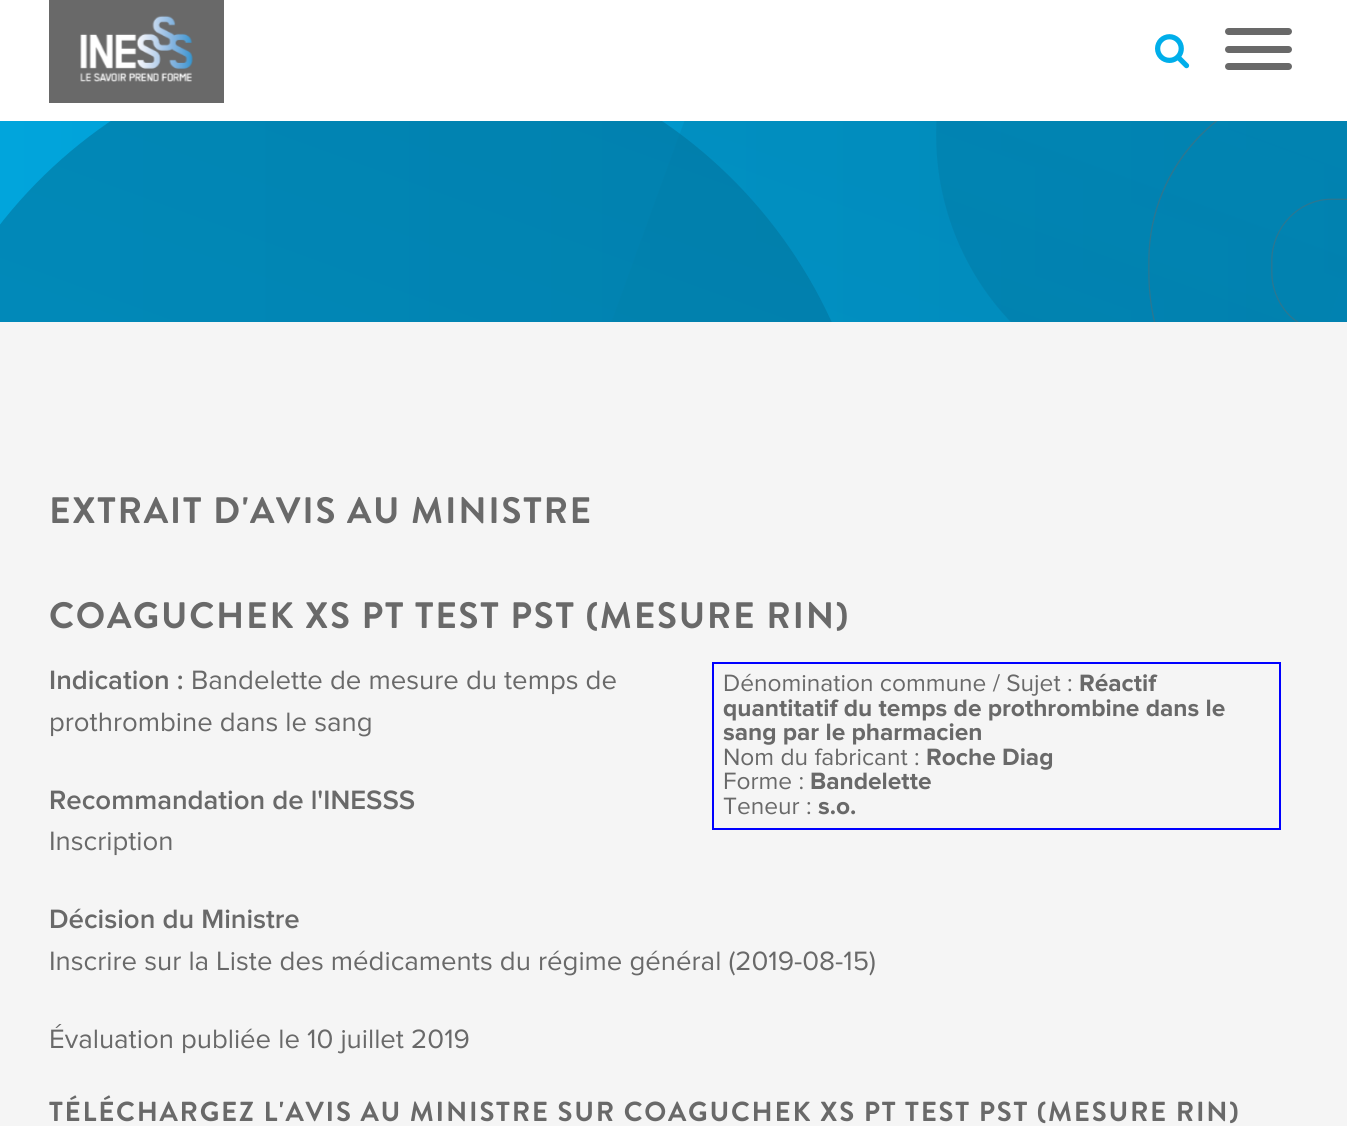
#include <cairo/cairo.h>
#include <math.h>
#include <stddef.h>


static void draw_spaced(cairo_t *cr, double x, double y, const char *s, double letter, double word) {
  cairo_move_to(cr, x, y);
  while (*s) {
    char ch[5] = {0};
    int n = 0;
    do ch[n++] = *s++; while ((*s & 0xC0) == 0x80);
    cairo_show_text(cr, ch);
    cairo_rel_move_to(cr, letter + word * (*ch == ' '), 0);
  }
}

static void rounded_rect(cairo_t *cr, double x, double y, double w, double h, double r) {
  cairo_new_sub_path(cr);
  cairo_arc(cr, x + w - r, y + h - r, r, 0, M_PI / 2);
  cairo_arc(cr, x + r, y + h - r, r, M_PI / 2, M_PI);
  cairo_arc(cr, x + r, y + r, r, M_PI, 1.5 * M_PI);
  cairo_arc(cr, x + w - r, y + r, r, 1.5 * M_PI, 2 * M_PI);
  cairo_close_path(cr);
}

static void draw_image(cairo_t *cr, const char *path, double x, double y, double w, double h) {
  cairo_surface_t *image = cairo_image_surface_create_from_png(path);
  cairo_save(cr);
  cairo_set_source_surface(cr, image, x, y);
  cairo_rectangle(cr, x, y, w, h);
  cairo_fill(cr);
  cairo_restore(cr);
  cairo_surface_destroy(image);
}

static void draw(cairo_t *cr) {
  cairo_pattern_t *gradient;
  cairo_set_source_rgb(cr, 1, 1, 1);
  cairo_paint(cr);
  gradient = cairo_pattern_create_linear(0, 212, 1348, 212);
  cairo_pattern_add_color_stop_rgba(gradient, 0, 1 / 255.0, 165 / 255.0, 220 / 255.0, 1);
  cairo_pattern_add_color_stop_rgba(gradient, 1, 1 / 255.0, 137 / 255.0, 187 / 255.0, 1);
  cairo_set_source(cr, gradient);
  cairo_pattern_destroy(gradient);
  cairo_rectangle(cr, 0, 121, 1347, 201);
  cairo_fill(cr);
  gradient = cairo_pattern_create_linear(1288, -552, 366, 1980);
  cairo_pattern_add_color_stop_rgba(gradient, 0, 1 / 255.0, 120 / 255.0, 163 / 255.0, 0.5);
  cairo_pattern_add_color_stop_rgba(gradient, 1, 1 / 255.0, 173 / 255.0, 227 / 255.0, 0.5);
  cairo_set_source(cr, gradient);
  cairo_pattern_destroy(gradient);
  cairo_new_path(cr);
  cairo_move_to(cr, 1288, -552);
  cairo_curve_to(cr, 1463, -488, 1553, -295, 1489, -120);
  cairo_line_to(cr, 798, 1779);
  cairo_curve_to(cr, 734, 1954, 541, 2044, 366, 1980);
  cairo_curve_to(cr, 191, 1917, 101, 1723, 165, 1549);
  cairo_line_to(cr, 856, -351);
  cairo_curve_to(cr, 920, -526, 1113, -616, 1288, -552);
  cairo_close_path(cr);
  cairo_fill(cr);
  gradient = cairo_pattern_create_linear(554, 66, -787, 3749);
  cairo_pattern_add_color_stop_rgba(gradient, 0, 1 / 255.0, 120 / 255.0, 163 / 255.0, 0.7);
  cairo_pattern_add_color_stop_rgba(gradient, 1, 1 / 255.0, 173 / 255.0, 227 / 255.0, 0.7);
  cairo_set_source(cr, gradient);
  cairo_pattern_destroy(gradient);
  cairo_new_path(cr);
  cairo_move_to(cr, 554, 66);
  cairo_curve_to(cr, 808, 158, 939, 439, 847, 694);
  cairo_line_to(cr, -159, 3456);
  cairo_curve_to(cr, -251, 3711, -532, 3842, -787, 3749);
  cairo_curve_to(cr, -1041, 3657, -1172, 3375, -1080, 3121);
  cairo_line_to(cr, -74, 358);
  cairo_curve_to(cr, 19, 104, 300, -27, 554, 66);
  cairo_close_path(cr);
  cairo_fill(cr);
  gradient = cairo_pattern_create_linear(1114, 389, 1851, -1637);
  cairo_pattern_add_color_stop_rgba(gradient, 0, 1 / 255.0, 120 / 255.0, 163 / 255.0, 0.5);
  cairo_pattern_add_color_stop_rgba(gradient, 1, 1 / 255.0, 173 / 255.0, 227 / 255.0, 0.5);
  cairo_set_source(cr, gradient);
  cairo_pattern_destroy(gradient);
  cairo_new_path(cr);
  cairo_move_to(cr, 1114, 389);
  cairo_curve_to(cr, 974, 339, 902, 184, 952, 44);
  cairo_line_to(cr, 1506, -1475);
  cairo_curve_to(cr, 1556, -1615, 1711, -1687, 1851, -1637);
  cairo_curve_to(cr, 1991, -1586, 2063, -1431, 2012, -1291);
  cairo_line_to(cr, 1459, 228);
  cairo_curve_to(cr, 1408, 368, 1253, 440, 1114, 389);
  cairo_close_path(cr);
  cairo_fill(cr);
  cairo_set_source_rgb(cr, 1, 1, 1);
  cairo_rectangle(cr, 110, 0, 1237, 121);
  cairo_fill(cr);
  cairo_set_source_rgb(cr, 105 / 255.0, 105 / 255.0, 105 / 255.0);
  cairo_rectangle(cr, 49, 0, 175, 103);
  cairo_fill(cr);
  draw_image(cr, "images/1.png", 80, 15, 113, 67);
  draw_image(cr, "images/2.png", 1155, 34, 35, 35);
  rounded_rect(cr, 1225, 46, 67, 7, 3.5);
  cairo_fill(cr);
  rounded_rect(cr, 1225, 28, 67, 7, 3.5);
  cairo_fill(cr);
  rounded_rect(cr, 1225, 63, 67, 7, 3.5);
  cairo_fill(cr);
  draw_image(cr, "images/3.png", 1148, 121, 199, 201);
  cairo_set_source_rgb(cr, 245 / 255.0, 245 / 255.0, 245 / 255.0);
  cairo_rectangle(cr, 0, 322, 1347, 804);
  cairo_fill(cr);
  cairo_rectangle(cr, 713, 663, 567, 166);
  cairo_set_source_rgb(cr, 0, 0, 1);
  cairo_stroke(cr);
  cairo_select_font_face(cr, "Brandon Grotesque", CAIRO_FONT_SLANT_NORMAL, CAIRO_FONT_WEIGHT_BOLD);
  cairo_set_font_size(cr, 36.75);
  cairo_set_source_rgb(cr, 105 / 255.0, 105 / 255.0, 105 / 255.0);
  draw_spaced(cr, 49, 523, "EXTRAIT D'AVIS AU MINISTRE", 1.75, 0);
  draw_spaced(cr, 49, 628, "COAGUCHEK XS PT TEST PST (MESURE RIN)", 1.75, 0);
  cairo_select_font_face(cr, "Proxima Nova SemiBold", CAIRO_FONT_SLANT_NORMAL, CAIRO_FONT_WEIGHT_NORMAL);
  cairo_set_font_size(cr, 27.55);
  cairo_move_to(cr, 49, 689);
  cairo_show_text(cr, "Indication :");
  cairo_select_font_face(cr, "Proxima Nova", CAIRO_FONT_SLANT_NORMAL, CAIRO_FONT_WEIGHT_NORMAL);
  cairo_move_to(cr, 191, 689);
  cairo_show_text(cr, "Bandelette de mesure du temps de");
  cairo_move_to(cr, 49, 731);
  cairo_show_text(cr, "prothrombine dans le sang");
  cairo_set_font_size(cr, 24.5);
  cairo_move_to(cr, 723, 691);
  cairo_show_text(cr, "Dénomination commune / Sujet :");
  cairo_select_font_face(cr, "Proxima Nova", CAIRO_FONT_SLANT_NORMAL, CAIRO_FONT_WEIGHT_BOLD);
  cairo_move_to(cr, 1079, 691);
  cairo_show_text(cr, "Réactif");
  cairo_move_to(cr, 723, 716);
  cairo_show_text(cr, "quantitatif du temps de prothrombine dans le");
  cairo_move_to(cr, 723, 740);
  cairo_show_text(cr, "sang par le pharmacien");
  cairo_select_font_face(cr, "Proxima Nova", CAIRO_FONT_SLANT_NORMAL, CAIRO_FONT_WEIGHT_NORMAL);
  cairo_move_to(cr, 723, 765);
  cairo_show_text(cr, "Nom du fabricant :");
  cairo_select_font_face(cr, "Proxima Nova", CAIRO_FONT_SLANT_NORMAL, CAIRO_FONT_WEIGHT_BOLD);
  cairo_move_to(cr, 926, 765);
  cairo_show_text(cr, "Roche Diag");
  cairo_select_font_face(cr, "Proxima Nova", CAIRO_FONT_SLANT_NORMAL, CAIRO_FONT_WEIGHT_NORMAL);
  cairo_move_to(cr, 723, 789);
  cairo_show_text(cr, "Forme :");
  cairo_select_font_face(cr, "Proxima Nova", CAIRO_FONT_SLANT_NORMAL, CAIRO_FONT_WEIGHT_BOLD);
  cairo_move_to(cr, 810, 789);
  cairo_show_text(cr, "Bandelette");
  cairo_select_font_face(cr, "Proxima Nova", CAIRO_FONT_SLANT_NORMAL, CAIRO_FONT_WEIGHT_NORMAL);
  cairo_move_to(cr, 723, 814);
  cairo_show_text(cr, "Teneur :");
  cairo_select_font_face(cr, "Proxima Nova", CAIRO_FONT_SLANT_NORMAL, CAIRO_FONT_WEIGHT_BOLD);
  cairo_move_to(cr, 818, 814);
  cairo_show_text(cr, "s.o.");
  cairo_select_font_face(cr, "Proxima Nova SemiBold", CAIRO_FONT_SLANT_NORMAL, CAIRO_FONT_WEIGHT_NORMAL);
  cairo_set_font_size(cr, 27.55);
  cairo_move_to(cr, 49, 809);
  cairo_show_text(cr, "Recommandation de l'INESSS");
  cairo_select_font_face(cr, "Proxima Nova", CAIRO_FONT_SLANT_NORMAL, CAIRO_FONT_WEIGHT_NORMAL);
  cairo_move_to(cr, 49, 850);
  cairo_show_text(cr, "Inscription");
  cairo_select_font_face(cr, "Proxima Nova SemiBold", CAIRO_FONT_SLANT_NORMAL, CAIRO_FONT_WEIGHT_NORMAL);
  cairo_move_to(cr, 49, 928);
  cairo_show_text(cr, "Décision du Ministre");
  cairo_select_font_face(cr, "Proxima Nova", CAIRO_FONT_SLANT_NORMAL, CAIRO_FONT_WEIGHT_NORMAL);
  cairo_move_to(cr, 49, 970);
  cairo_show_text(cr, "Inscrire sur la Liste des médicaments du régime général (2019-08-15)");
  cairo_move_to(cr, 49, 1048);
  cairo_show_text(cr, "Évaluation publiée le 10 juillet 2019");
  cairo_select_font_face(cr, "Brandon Grotesque", CAIRO_FONT_SLANT_NORMAL, CAIRO_FONT_WEIGHT_BOLD);
  draw_spaced(cr, 49, 1121, "TÉLÉCHARGEZ L'AVIS AU MINISTRE SUR COAGUCHEK XS PT TEST PST (MESURE RIN)", 1.75, 0);
}

int main(void) {
  cairo_surface_t *surface = cairo_image_surface_create(CAIRO_FORMAT_RGB24, 1347, 1126);
  cairo_t *cr = cairo_create(surface);
  cairo_font_options_t *options = cairo_font_options_create();
  cairo_font_options_set_hint_metrics(options, CAIRO_HINT_METRICS_OFF);
  cairo_font_options_set_hint_style(options, CAIRO_HINT_STYLE_NONE);
  cairo_set_font_options(cr, options);
  cairo_set_miter_limit(cr, 4);
  draw(cr);
  cairo_surface_write_to_png(surface, "out.png");
  cairo_font_options_destroy(options);
  cairo_destroy(cr);
  cairo_surface_destroy(surface);
  return 0;
}
